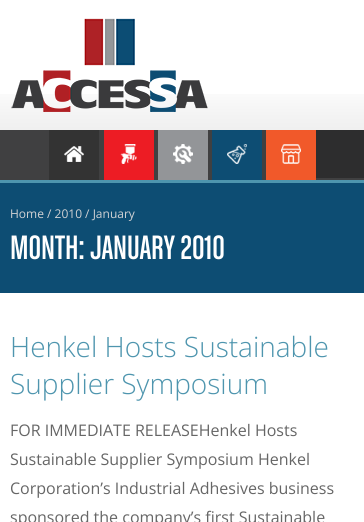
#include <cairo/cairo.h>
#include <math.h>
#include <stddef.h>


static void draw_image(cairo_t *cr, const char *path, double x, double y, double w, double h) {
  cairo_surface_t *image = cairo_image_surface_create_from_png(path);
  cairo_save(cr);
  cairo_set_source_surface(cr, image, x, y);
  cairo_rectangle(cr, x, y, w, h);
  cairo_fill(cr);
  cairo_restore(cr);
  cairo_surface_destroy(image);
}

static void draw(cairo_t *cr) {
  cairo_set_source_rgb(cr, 1, 1, 1);
  cairo_paint(cr);
  draw_image(cr, "images/1.png", 0, 94, 364, 36);
  draw_image(cr, "images/2.png", 11, 18, 197, 94);
  cairo_set_source_rgb(cr, 64 / 255.0, 64 / 255.0, 65 / 255.0);
  cairo_rectangle(cr, 0, 130, 364, 50);
  cairo_fill(cr);
  cairo_set_source_rgb(cr, 78 / 255.0, 149 / 255.0, 174 / 255.0);
  cairo_rectangle(cr, 0, 180, 364, 3);
  cairo_fill(cr);
  cairo_set_source_rgb(cr, 51 / 255.0, 51 / 255.0, 51 / 255.0);
  cairo_rectangle(cr, 49, 130, 50, 50);
  cairo_fill(cr);
  draw_image(cr, "images/3.png", 64, 146, 20, 16);
  cairo_set_source_rgb(cr, 237 / 255.0, 28 / 255.0, 36 / 255.0);
  cairo_rectangle(cr, 104, 130, 50, 50);
  cairo_fill(cr);
  draw_image(cr, "images/4.png", 120, 144, 17, 20);
  cairo_set_source_rgb(cr, 147 / 255.0, 149 / 255.0, 152 / 255.0);
  cairo_rectangle(cr, 158, 130, 50, 50);
  cairo_fill(cr);
  draw_image(cr, "images/5.png", 173, 144, 20, 20);
  cairo_set_source_rgb(cr, 13 / 255.0, 77 / 255.0, 115 / 255.0);
  cairo_rectangle(cr, 212, 130, 50, 50);
  cairo_fill(cr);
  draw_image(cr, "images/6.png", 227, 144, 20, 20);
  cairo_set_source_rgb(cr, 241 / 255.0, 89 / 255.0, 42 / 255.0);
  cairo_rectangle(cr, 266, 130, 50, 50);
  cairo_fill(cr);
  draw_image(cr, "images/7.png", 281, 144, 20, 20);
  cairo_set_source_rgb(cr, 45 / 255.0, 45 / 255.0, 46 / 255.0);
  cairo_rectangle(cr, 316, 130, 48, 48);
  cairo_fill(cr);
  cairo_set_source_rgb(cr, 13 / 255.0, 77 / 255.0, 115 / 255.0);
  cairo_rectangle(cr, 0, 183, 364, 110);
  cairo_fill(cr);
  cairo_select_font_face(cr, "Open Sans", CAIRO_FONT_SLANT_NORMAL, CAIRO_FONT_WEIGHT_NORMAL);
  cairo_set_font_size(cr, 12);
  cairo_set_source_rgb(cr, 209 / 255.0, 210 / 255.0, 212 / 255.0);
  cairo_move_to(cr, 10, 218);
  cairo_show_text(cr, "Home / 2010 / January");
  cairo_select_font_face(cr, "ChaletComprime", CAIRO_FONT_SLANT_NORMAL, CAIRO_FONT_WEIGHT_NORMAL);
  cairo_set_font_size(cr, 36);
  cairo_set_source_rgb(cr, 1, 1, 1);
  cairo_move_to(cr, 10, 259);
  cairo_show_text(cr, "MONTH: JANUARY 2010");
  cairo_select_font_face(cr, "Open Sans Light", CAIRO_FONT_SLANT_NORMAL, CAIRO_FONT_WEIGHT_NORMAL);
  cairo_set_font_size(cr, 28);
  cairo_set_source_rgb(cr, 78 / 255.0, 149 / 255.0, 174 / 255.0);
  cairo_move_to(cr, 10, 357);
  cairo_show_text(cr, "Henkel Hosts Sustainable");
  cairo_move_to(cr, 10, 394);
  cairo_show_text(cr, "Supplier Symposium");
  cairo_select_font_face(cr, "Open Sans", CAIRO_FONT_SLANT_NORMAL, CAIRO_FONT_WEIGHT_NORMAL);
  cairo_set_font_size(cr, 16);
  cairo_set_source_rgb(cr, 102 / 255.0, 102 / 255.0, 102 / 255.0);
  cairo_move_to(cr, 10, 436);
  cairo_show_text(cr, "FOR IMMEDIATE RELEASEHenkel Hosts");
  cairo_move_to(cr, 10, 465);
  cairo_show_text(cr, "Sustainable Supplier Symposium Henkel");
  cairo_move_to(cr, 10, 494);
  cairo_show_text(cr, "Corporation’s Industrial Adhesives business");
  cairo_move_to(cr, 10, 523);
  cairo_show_text(cr, "sponsored the company’s first Sustainable");
}

int main(void) {
  cairo_surface_t *surface = cairo_image_surface_create(CAIRO_FORMAT_RGB24, 364, 522);
  cairo_t *cr = cairo_create(surface);
  cairo_font_options_t *options = cairo_font_options_create();
  cairo_font_options_set_hint_metrics(options, CAIRO_HINT_METRICS_OFF);
  cairo_font_options_set_hint_style(options, CAIRO_HINT_STYLE_NONE);
  cairo_set_font_options(cr, options);
  cairo_set_miter_limit(cr, 4);
  draw(cr);
  cairo_surface_write_to_png(surface, "out.png");
  cairo_font_options_destroy(options);
  cairo_destroy(cr);
  cairo_surface_destroy(surface);
  return 0;
}
